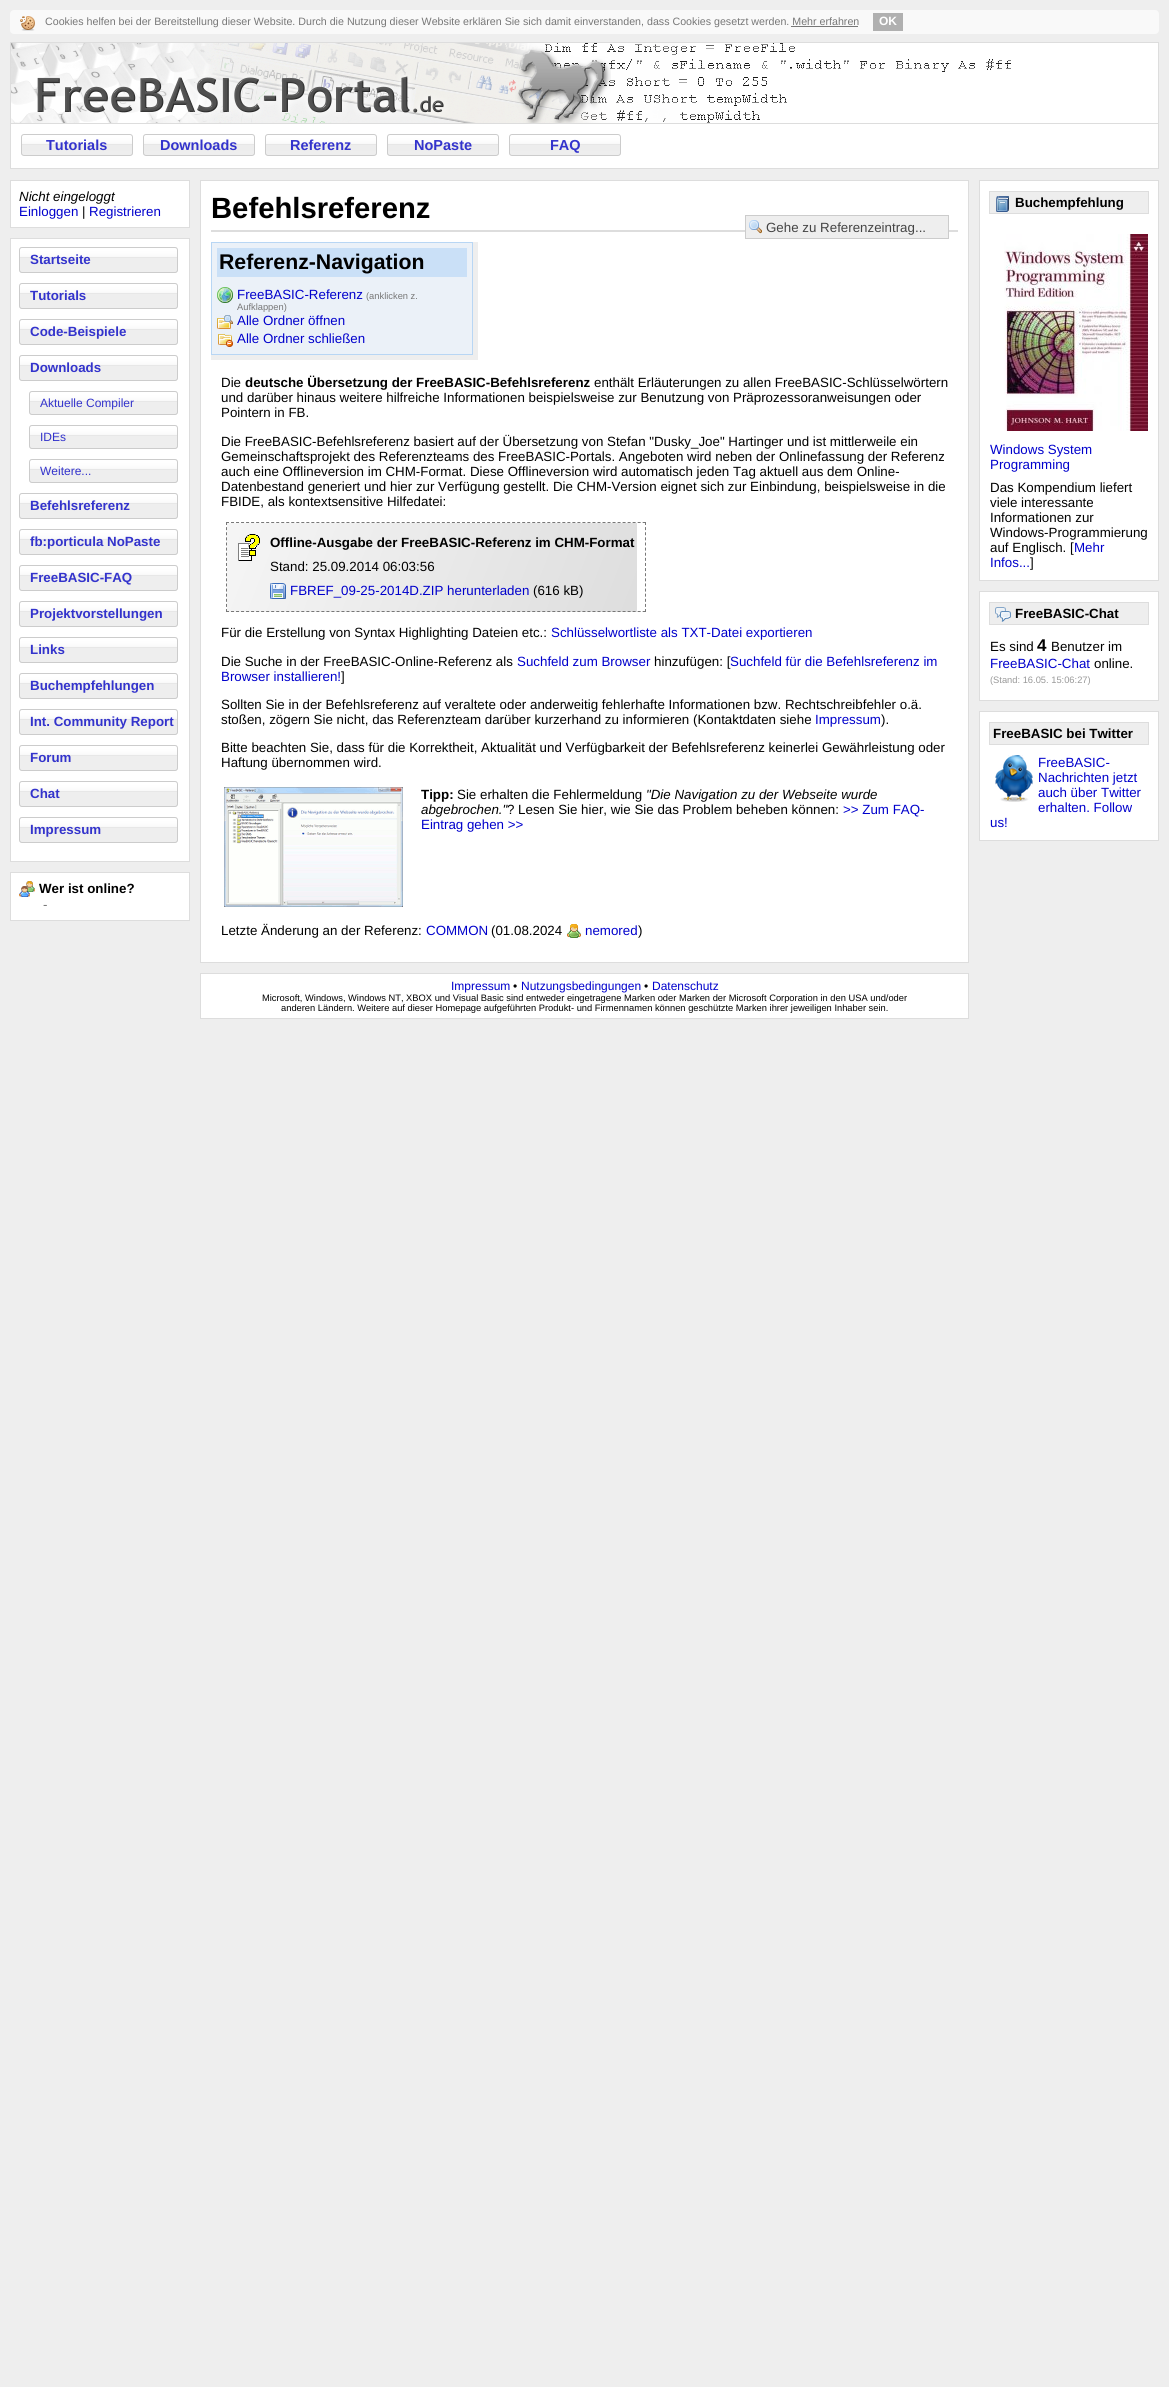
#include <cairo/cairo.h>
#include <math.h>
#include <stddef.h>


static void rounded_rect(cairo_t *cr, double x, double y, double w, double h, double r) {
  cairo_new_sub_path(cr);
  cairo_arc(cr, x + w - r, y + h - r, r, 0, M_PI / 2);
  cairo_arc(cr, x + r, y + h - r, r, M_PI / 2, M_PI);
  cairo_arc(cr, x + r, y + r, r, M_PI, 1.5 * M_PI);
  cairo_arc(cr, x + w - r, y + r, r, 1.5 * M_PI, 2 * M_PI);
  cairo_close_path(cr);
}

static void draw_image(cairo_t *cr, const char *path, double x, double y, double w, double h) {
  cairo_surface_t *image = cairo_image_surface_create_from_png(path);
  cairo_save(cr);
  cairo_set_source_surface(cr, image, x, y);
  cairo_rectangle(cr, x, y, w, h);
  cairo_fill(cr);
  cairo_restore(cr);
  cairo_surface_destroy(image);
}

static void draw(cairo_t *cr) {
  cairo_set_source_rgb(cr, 238 / 255.0, 238 / 255.0, 238 / 255.0);
  cairo_paint(cr);
  cairo_set_source_rgb(cr, 249 / 255.0, 249 / 255.0, 249 / 255.0);
  rounded_rect(cr, 10, 10, 1149, 24, 4);
  cairo_fill(cr);
  draw_image(cr, "images/1.png", 20, 16, 15, 15);
  cairo_set_source_rgb(cr, 176 / 255.0, 176 / 255.0, 176 / 255.0);
  cairo_rectangle(cr, 873, 13, 30, 18);
  cairo_fill(cr);
  cairo_set_source_rgb(cr, 119 / 255.0, 119 / 255.0, 119 / 255.0);
  cairo_rectangle(cr, 791, 26, 67, 1);
  cairo_fill(cr);
  cairo_set_source_rgb(cr, 1, 1, 1);
  cairo_rectangle(cr, 10.5, 42.5, 1148, 126);
  cairo_fill_preserve(cr);
  cairo_set_source_rgb(cr, 221 / 255.0, 221 / 255.0, 221 / 255.0);
  cairo_set_line_width(cr, 1);
  cairo_stroke(cr);
  cairo_rectangle(cr, 11, 123, 1147, 1);
  cairo_fill(cr);
  draw_image(cr, "images/2.png", 11, 43, 1000, 80);
  draw_image(cr, "images/3.png", 21, 135, 112, 20);
  rounded_rect(cr, 21.5, 134.5, 111, 21, 2.5);
  cairo_set_source_rgb(cr, 204 / 255.0, 204 / 255.0, 204 / 255.0);
  cairo_stroke(cr);
  draw_image(cr, "images/3.png", 143, 135, 112, 20);
  rounded_rect(cr, 143.5, 134.5, 111, 21, 2.5);
  cairo_stroke(cr);
  draw_image(cr, "images/3.png", 265, 135, 112, 20);
  rounded_rect(cr, 265.5, 134.5, 111, 21, 2.5);
  cairo_stroke(cr);
  draw_image(cr, "images/3.png", 387, 135, 112, 20);
  rounded_rect(cr, 387.5, 134.5, 111, 21, 2.5);
  cairo_stroke(cr);
  draw_image(cr, "images/3.png", 509, 135, 112, 20);
  rounded_rect(cr, 509.5, 134.5, 111, 21, 2.5);
  cairo_stroke(cr);
  cairo_set_source_rgb(cr, 1, 1, 1);
  cairo_rectangle(cr, 10.5, 180.5, 179, 47);
  cairo_fill_preserve(cr);
  cairo_set_source_rgb(cr, 221 / 255.0, 221 / 255.0, 221 / 255.0);
  cairo_stroke(cr);
  cairo_set_source_rgb(cr, 1, 1, 1);
  cairo_rectangle(cr, 10.5, 238.5, 179, 623);
  cairo_fill_preserve(cr);
  cairo_set_source_rgb(cr, 221 / 255.0, 221 / 255.0, 221 / 255.0);
  cairo_stroke(cr);
  cairo_set_source_rgb(cr, 238 / 255.0, 238 / 255.0, 238 / 255.0);
  rounded_rect(cr, 19, 247, 159, 26, 3);
  cairo_fill(cr);
  draw_image(cr, "images/4.png", 19, 248, 159, 10);
  rounded_rect(cr, 19.5, 247.5, 158, 25, 2.5);
  cairo_set_source_rgb(cr, 204 / 255.0, 204 / 255.0, 204 / 255.0);
  cairo_stroke(cr);
  cairo_set_source_rgb(cr, 238 / 255.0, 238 / 255.0, 238 / 255.0);
  rounded_rect(cr, 19, 283, 159, 26, 3);
  cairo_fill(cr);
  draw_image(cr, "images/4.png", 19, 284, 159, 10);
  rounded_rect(cr, 19.5, 283.5, 158, 25, 2.5);
  cairo_set_source_rgb(cr, 204 / 255.0, 204 / 255.0, 204 / 255.0);
  cairo_stroke(cr);
  cairo_set_source_rgb(cr, 238 / 255.0, 238 / 255.0, 238 / 255.0);
  rounded_rect(cr, 19, 319, 159, 26, 3);
  cairo_fill(cr);
  draw_image(cr, "images/4.png", 19, 320, 159, 10);
  rounded_rect(cr, 19.5, 319.5, 158, 25, 2.5);
  cairo_set_source_rgb(cr, 204 / 255.0, 204 / 255.0, 204 / 255.0);
  cairo_stroke(cr);
  cairo_set_source_rgb(cr, 238 / 255.0, 238 / 255.0, 238 / 255.0);
  rounded_rect(cr, 19, 355, 159, 26, 3);
  cairo_fill(cr);
  draw_image(cr, "images/4.png", 19, 356, 159, 10);
  rounded_rect(cr, 19.5, 355.5, 158, 25, 2.5);
  cairo_set_source_rgb(cr, 204 / 255.0, 204 / 255.0, 204 / 255.0);
  cairo_stroke(cr);
  cairo_set_source_rgb(cr, 238 / 255.0, 238 / 255.0, 238 / 255.0);
  rounded_rect(cr, 29, 391, 149, 24, 3);
  cairo_fill(cr);
  draw_image(cr, "images/5.png", 29, 392, 149, 10);
  rounded_rect(cr, 29.5, 391.5, 148, 23, 2.5);
  cairo_set_source_rgb(cr, 204 / 255.0, 204 / 255.0, 204 / 255.0);
  cairo_stroke(cr);
  cairo_set_source_rgb(cr, 238 / 255.0, 238 / 255.0, 238 / 255.0);
  rounded_rect(cr, 29, 425, 149, 24, 3);
  cairo_fill(cr);
  draw_image(cr, "images/5.png", 29, 426, 149, 10);
  rounded_rect(cr, 29.5, 425.5, 148, 23, 2.5);
  cairo_set_source_rgb(cr, 204 / 255.0, 204 / 255.0, 204 / 255.0);
  cairo_stroke(cr);
  cairo_set_source_rgb(cr, 238 / 255.0, 238 / 255.0, 238 / 255.0);
  rounded_rect(cr, 29, 459, 149, 24, 3);
  cairo_fill(cr);
  draw_image(cr, "images/5.png", 29, 460, 149, 10);
  rounded_rect(cr, 29.5, 459.5, 148, 23, 2.5);
  cairo_set_source_rgb(cr, 204 / 255.0, 204 / 255.0, 204 / 255.0);
  cairo_stroke(cr);
  cairo_set_source_rgb(cr, 238 / 255.0, 238 / 255.0, 238 / 255.0);
  rounded_rect(cr, 19, 493, 159, 26, 3);
  cairo_fill(cr);
  draw_image(cr, "images/4.png", 19, 494, 159, 10);
  rounded_rect(cr, 19.5, 493.5, 158, 25, 2.5);
  cairo_set_source_rgb(cr, 204 / 255.0, 204 / 255.0, 204 / 255.0);
  cairo_stroke(cr);
  cairo_set_source_rgb(cr, 238 / 255.0, 238 / 255.0, 238 / 255.0);
  rounded_rect(cr, 19, 529, 159, 26, 3);
  cairo_fill(cr);
  draw_image(cr, "images/4.png", 19, 530, 159, 10);
  rounded_rect(cr, 19.5, 529.5, 158, 25, 2.5);
  cairo_set_source_rgb(cr, 204 / 255.0, 204 / 255.0, 204 / 255.0);
  cairo_stroke(cr);
  cairo_set_source_rgb(cr, 238 / 255.0, 238 / 255.0, 238 / 255.0);
  rounded_rect(cr, 19, 565, 159, 26, 3);
  cairo_fill(cr);
  draw_image(cr, "images/4.png", 19, 566, 159, 10);
  rounded_rect(cr, 19.5, 565.5, 158, 25, 2.5);
  cairo_set_source_rgb(cr, 204 / 255.0, 204 / 255.0, 204 / 255.0);
  cairo_stroke(cr);
  cairo_set_source_rgb(cr, 238 / 255.0, 238 / 255.0, 238 / 255.0);
  rounded_rect(cr, 19, 601, 159, 26, 3);
  cairo_fill(cr);
  draw_image(cr, "images/4.png", 19, 602, 159, 10);
  rounded_rect(cr, 19.5, 601.5, 158, 25, 2.5);
  cairo_set_source_rgb(cr, 204 / 255.0, 204 / 255.0, 204 / 255.0);
  cairo_stroke(cr);
  cairo_set_source_rgb(cr, 238 / 255.0, 238 / 255.0, 238 / 255.0);
  rounded_rect(cr, 19, 637, 159, 26, 3);
  cairo_fill(cr);
  draw_image(cr, "images/4.png", 19, 638, 159, 10);
  rounded_rect(cr, 19.5, 637.5, 158, 25, 2.5);
  cairo_set_source_rgb(cr, 204 / 255.0, 204 / 255.0, 204 / 255.0);
  cairo_stroke(cr);
  cairo_set_source_rgb(cr, 238 / 255.0, 238 / 255.0, 238 / 255.0);
  rounded_rect(cr, 19, 673, 159, 26, 3);
  cairo_fill(cr);
  draw_image(cr, "images/4.png", 19, 674, 159, 10);
  rounded_rect(cr, 19.5, 673.5, 158, 25, 2.5);
  cairo_set_source_rgb(cr, 204 / 255.0, 204 / 255.0, 204 / 255.0);
  cairo_stroke(cr);
  cairo_set_source_rgb(cr, 238 / 255.0, 238 / 255.0, 238 / 255.0);
  rounded_rect(cr, 19, 709, 159, 26, 3);
  cairo_fill(cr);
  draw_image(cr, "images/4.png", 19, 710, 159, 10);
  rounded_rect(cr, 19.5, 709.5, 158, 25, 2.5);
  cairo_set_source_rgb(cr, 204 / 255.0, 204 / 255.0, 204 / 255.0);
  cairo_stroke(cr);
  cairo_set_source_rgb(cr, 238 / 255.0, 238 / 255.0, 238 / 255.0);
  rounded_rect(cr, 19, 745, 159, 26, 3);
  cairo_fill(cr);
  draw_image(cr, "images/4.png", 19, 746, 159, 10);
  rounded_rect(cr, 19.5, 745.5, 158, 25, 2.5);
  cairo_set_source_rgb(cr, 204 / 255.0, 204 / 255.0, 204 / 255.0);
  cairo_stroke(cr);
  cairo_set_source_rgb(cr, 238 / 255.0, 238 / 255.0, 238 / 255.0);
  rounded_rect(cr, 19, 781, 159, 26, 3);
  cairo_fill(cr);
  draw_image(cr, "images/4.png", 19, 782, 159, 10);
  rounded_rect(cr, 19.5, 781.5, 158, 25, 2.5);
  cairo_set_source_rgb(cr, 204 / 255.0, 204 / 255.0, 204 / 255.0);
  cairo_stroke(cr);
  cairo_set_source_rgb(cr, 238 / 255.0, 238 / 255.0, 238 / 255.0);
  rounded_rect(cr, 19, 817, 159, 26, 3);
  cairo_fill(cr);
  draw_image(cr, "images/4.png", 19, 818, 159, 10);
  rounded_rect(cr, 19.5, 817.5, 158, 25, 2.5);
  cairo_set_source_rgb(cr, 204 / 255.0, 204 / 255.0, 204 / 255.0);
  cairo_stroke(cr);
  cairo_set_source_rgb(cr, 1, 1, 1);
  cairo_rectangle(cr, 10.5, 872.5, 179, 48);
  cairo_fill_preserve(cr);
  cairo_set_source_rgb(cr, 221 / 255.0, 221 / 255.0, 221 / 255.0);
  cairo_stroke(cr);
  draw_image(cr, "images/6.png", 19, 881, 16, 16);
  cairo_set_source_rgb(cr, 1, 1, 1);
  cairo_rectangle(cr, 200.5, 180.5, 768, 782);
  cairo_fill_preserve(cr);
  cairo_set_source_rgb(cr, 221 / 255.0, 221 / 255.0, 221 / 255.0);
  cairo_stroke(cr);
  cairo_rectangle(cr, 211, 230, 747, 2);
  cairo_fill(cr);
  cairo_set_source_rgb(cr, 238 / 255.0, 238 / 255.0, 238 / 255.0);
  cairo_rectangle(cr, 746, 216, 202, 22);
  cairo_fill(cr);
  draw_image(cr, "images/7.png", 749, 220, 13, 14);
  cairo_rectangle(cr, 745.5, 215.5, 203, 23);
  cairo_set_source_rgb(cr, 204 / 255.0, 204 / 255.0, 204 / 255.0);
  cairo_stroke(cr);
  cairo_set_source_rgb(cr, 238 / 255.0, 238 / 255.0, 238 / 255.0);
  cairo_rectangle(cr, 473, 242, 5, 118);
  cairo_fill(cr);
  cairo_rectangle(cr, 211, 355, 267, 5);
  cairo_fill(cr);
  cairo_set_source_rgb(cr, 235 / 255.0, 241 / 255.0, 248 / 255.0);
  cairo_rectangle(cr, 211.5, 242.5, 261, 112);
  cairo_fill_preserve(cr);
  cairo_set_source_rgb(cr, 184 / 255.0, 214 / 255.0, 244 / 255.0);
  cairo_stroke(cr);
  cairo_set_source_rgb(cr, 202 / 255.0, 224 / 255.0, 247 / 255.0);
  cairo_rectangle(cr, 217, 248, 250, 29);
  cairo_fill(cr);
  draw_image(cr, "images/8.png", 217, 287, 16, 16);
  draw_image(cr, "images/9.png", 217, 315, 16, 14);
  draw_image(cr, "images/10.png", 218, 334, 15, 13);
  draw_image(cr, "images/11.png", 227, 523, 410, 89);
  cairo_new_path(cr);
  cairo_move_to(cr, 226, 522.5);
  cairo_line_to(cr, 646, 522.5);
  cairo_set_source_rgb(cr, 119 / 255.0, 119 / 255.0, 119 / 255.0);
  cairo_set_dash(cr, (double[]){3, 2.02}, 2, 0);
  cairo_stroke(cr);
  cairo_new_path(cr);
  cairo_move_to(cr, 645.5, 522);
  cairo_line_to(cr, 645.5, 612);
  cairo_set_dash(cr, (double[]){3, 2.12}, 2, 0);
  cairo_stroke(cr);
  cairo_new_path(cr);
  cairo_move_to(cr, 226, 611.5);
  cairo_line_to(cr, 646, 611.5);
  cairo_set_dash(cr, (double[]){3, 2.02}, 2, 0);
  cairo_stroke(cr);
  cairo_new_path(cr);
  cairo_move_to(cr, 226.5, 522);
  cairo_line_to(cr, 226.5, 612);
  cairo_set_dash(cr, (double[]){3, 2.12}, 2, 0);
  cairo_stroke(cr);
  draw_image(cr, "images/12.png", 238, 534, 22, 27);
  draw_image(cr, "images/13.png", 270, 583, 16, 16);
  draw_image(cr, "images/14.png", 224, 787, 179, 120);
  draw_image(cr, "images/15.png", 567, 924, 14, 14);
  cairo_set_source_rgb(cr, 1, 1, 1);
  cairo_rectangle(cr, 979.5, 180.5, 179, 400);
  cairo_fill_preserve(cr);
  cairo_set_source_rgb(cr, 221 / 255.0, 221 / 255.0, 221 / 255.0);
  cairo_set_dash(cr, NULL, 0, 0);
  cairo_stroke(cr);
  cairo_set_source_rgb(cr, 238 / 255.0, 238 / 255.0, 238 / 255.0);
  cairo_rectangle(cr, 989.5, 191.5, 159, 22);
  cairo_fill_preserve(cr);
  cairo_set_source_rgb(cr, 221 / 255.0, 221 / 255.0, 221 / 255.0);
  cairo_stroke(cr);
  draw_image(cr, "images/16.png", 996, 196, 13, 16);
  draw_image(cr, "images/17.png", 1004, 234, 144, 197);
  cairo_set_source_rgb(cr, 1, 1, 1);
  cairo_rectangle(cr, 979.5, 591.5, 179, 109);
  cairo_fill_preserve(cr);
  cairo_set_source_rgb(cr, 221 / 255.0, 221 / 255.0, 221 / 255.0);
  cairo_stroke(cr);
  cairo_set_source_rgb(cr, 238 / 255.0, 238 / 255.0, 238 / 255.0);
  cairo_rectangle(cr, 989.5, 602.5, 159, 22);
  cairo_fill_preserve(cr);
  cairo_set_source_rgb(cr, 221 / 255.0, 221 / 255.0, 221 / 255.0);
  cairo_stroke(cr);
  draw_image(cr, "images/18.png", 995, 607, 16, 15);
  cairo_set_source_rgb(cr, 1, 1, 1);
  cairo_rectangle(cr, 979.5, 711.5, 179, 129);
  cairo_fill_preserve(cr);
  cairo_set_source_rgb(cr, 221 / 255.0, 221 / 255.0, 221 / 255.0);
  cairo_stroke(cr);
  cairo_set_source_rgb(cr, 238 / 255.0, 238 / 255.0, 238 / 255.0);
  cairo_rectangle(cr, 989.5, 722.5, 159, 22);
  cairo_fill_preserve(cr);
  cairo_set_source_rgb(cr, 221 / 255.0, 221 / 255.0, 221 / 255.0);
  cairo_stroke(cr);
  draw_image(cr, "images/19.png", 995, 755, 38, 47);
  cairo_set_source_rgb(cr, 1, 1, 1);
  cairo_rectangle(cr, 200.5, 973.5, 768, 45);
  cairo_fill_preserve(cr);
  cairo_set_source_rgb(cr, 221 / 255.0, 221 / 255.0, 221 / 255.0);
  cairo_stroke(cr);
  cairo_select_font_face(cr, "Liberation Sans", CAIRO_FONT_SLANT_NORMAL, CAIRO_FONT_WEIGHT_NORMAL);
  cairo_set_font_size(cr, 10.67);
  cairo_set_source_rgb(cr, 119 / 255.0, 119 / 255.0, 119 / 255.0);
  cairo_move_to(cr, 45, 25);
  cairo_show_text(cr, "Cookies helfen bei der Bereitstellung dieser Website. Durch die Nutzung dieser Website erklären Sie sich damit einverstanden, dass Cookies gesetzt werden. Mehr erfahren");
  cairo_select_font_face(cr, "Liberation Sans", CAIRO_FONT_SLANT_NORMAL, CAIRO_FONT_WEIGHT_BOLD);
  cairo_set_font_size(cr, 12);
  cairo_set_source_rgb(cr, 1, 1, 1);
  cairo_move_to(cr, 879, 25);
  cairo_show_text(cr, "OK");
  cairo_set_font_size(cr, 14.5);
  cairo_set_source_rgb(cr, 51 / 255.0, 51 / 255.0, 204 / 255.0);
  cairo_move_to(cr, 46, 150);
  cairo_show_text(cr, "Tutorials");
  cairo_move_to(cr, 160, 150);
  cairo_show_text(cr, "Downloads");
  cairo_move_to(cr, 290, 150);
  cairo_show_text(cr, "Referenz");
  cairo_move_to(cr, 414, 150);
  cairo_show_text(cr, "NoPaste");
  cairo_move_to(cr, 550, 150);
  cairo_show_text(cr, "FAQ");
  cairo_select_font_face(cr, "Liberation Sans", CAIRO_FONT_SLANT_ITALIC, CAIRO_FONT_WEIGHT_NORMAL);
  cairo_set_font_size(cr, 13.33);
  cairo_set_source_rgb(cr, 0, 0, 0);
  cairo_move_to(cr, 19, 201);
  cairo_show_text(cr, "Nicht eingeloggt");
  cairo_select_font_face(cr, "Liberation Sans", CAIRO_FONT_SLANT_NORMAL, CAIRO_FONT_WEIGHT_NORMAL);
  cairo_set_source_rgb(cr, 0, 0, 204 / 255.0);
  cairo_move_to(cr, 19, 216);
  cairo_show_text(cr, "Einloggen");
  cairo_set_source_rgb(cr, 0, 0, 0);
  cairo_move_to(cr, 82, 216);
  cairo_show_text(cr, "|");
  cairo_set_source_rgb(cr, 0, 0, 204 / 255.0);
  cairo_move_to(cr, 89, 216);
  cairo_show_text(cr, "Registrieren");
  cairo_select_font_face(cr, "Liberation Sans", CAIRO_FONT_SLANT_NORMAL, CAIRO_FONT_WEIGHT_BOLD);
  cairo_set_source_rgb(cr, 51 / 255.0, 51 / 255.0, 204 / 255.0);
  cairo_move_to(cr, 30, 264);
  cairo_show_text(cr, "Startseite");
  cairo_move_to(cr, 30, 300);
  cairo_show_text(cr, "Tutorials");
  cairo_move_to(cr, 30, 336);
  cairo_show_text(cr, "Code-Beispiele");
  cairo_move_to(cr, 30, 372);
  cairo_show_text(cr, "Downloads");
  cairo_select_font_face(cr, "Liberation Sans", CAIRO_FONT_SLANT_NORMAL, CAIRO_FONT_WEIGHT_NORMAL);
  cairo_set_font_size(cr, 12);
  cairo_move_to(cr, 40, 407);
  cairo_show_text(cr, "Aktuelle Compiler");
  cairo_move_to(cr, 40, 441);
  cairo_show_text(cr, "IDEs");
  cairo_move_to(cr, 40, 475);
  cairo_show_text(cr, "Weitere...");
  cairo_select_font_face(cr, "Liberation Sans", CAIRO_FONT_SLANT_NORMAL, CAIRO_FONT_WEIGHT_BOLD);
  cairo_set_font_size(cr, 13.33);
  cairo_move_to(cr, 30, 510);
  cairo_show_text(cr, "Befehlsreferenz");
  cairo_move_to(cr, 30, 546);
  cairo_show_text(cr, "fb:porticula NoPaste");
  cairo_move_to(cr, 30, 582);
  cairo_show_text(cr, "FreeBASIC-FAQ");
  cairo_move_to(cr, 30, 618);
  cairo_show_text(cr, "Projektvorstellungen");
  cairo_move_to(cr, 30, 654);
  cairo_show_text(cr, "Links");
  cairo_move_to(cr, 30, 690);
  cairo_show_text(cr, "Buchempfehlungen");
  cairo_move_to(cr, 30, 726);
  cairo_show_text(cr, "Int. Community Report");
  cairo_move_to(cr, 30, 762);
  cairo_show_text(cr, "Forum");
  cairo_move_to(cr, 30, 798);
  cairo_show_text(cr, "Chat");
  cairo_move_to(cr, 30, 834);
  cairo_show_text(cr, "Impressum");
  cairo_set_source_rgb(cr, 0, 0, 0);
  cairo_move_to(cr, 39, 893);
  cairo_show_text(cr, "Wer ist online?");
  cairo_select_font_face(cr, "Liberation Sans", CAIRO_FONT_SLANT_NORMAL, CAIRO_FONT_WEIGHT_NORMAL);
  cairo_set_source_rgb(cr, 119 / 255.0, 119 / 255.0, 119 / 255.0);
  cairo_move_to(cr, 43, 909);
  cairo_show_text(cr, "-");
  cairo_select_font_face(cr, "Liberation Sans", CAIRO_FONT_SLANT_NORMAL, CAIRO_FONT_WEIGHT_BOLD);
  cairo_set_font_size(cr, 29.25);
  cairo_set_source_rgb(cr, 0, 0, 0);
  cairo_move_to(cr, 211, 218);
  cairo_show_text(cr, "Befehlsreferenz");
  cairo_select_font_face(cr, "Liberation Sans", CAIRO_FONT_SLANT_NORMAL, CAIRO_FONT_WEIGHT_NORMAL);
  cairo_set_font_size(cr, 13.33);
  cairo_set_source_rgb(cr, 68 / 255.0, 68 / 255.0, 68 / 255.0);
  cairo_move_to(cr, 766, 232);
  cairo_show_text(cr, "Gehe zu Referenzeintrag...");
  cairo_select_font_face(cr, "Liberation Sans", CAIRO_FONT_SLANT_NORMAL, CAIRO_FONT_WEIGHT_BOLD);
  cairo_set_font_size(cr, 21.25);
  cairo_set_source_rgb(cr, 0, 0, 0);
  cairo_move_to(cr, 219, 269);
  cairo_show_text(cr, "Referenz-Navigation");
  cairo_select_font_face(cr, "Liberation Sans", CAIRO_FONT_SLANT_NORMAL, CAIRO_FONT_WEIGHT_NORMAL);
  cairo_set_font_size(cr, 13.33);
  cairo_set_source_rgb(cr, 0, 0, 204 / 255.0);
  cairo_move_to(cr, 237, 299);
  cairo_show_text(cr, "FreeBASIC-Referenz");
  cairo_set_font_size(cr, 9.33);
  cairo_set_source_rgb(cr, 119 / 255.0, 119 / 255.0, 119 / 255.0);
  cairo_move_to(cr, 366, 299);
  cairo_show_text(cr, "(anklicken z.");
  cairo_move_to(cr, 237, 310);
  cairo_show_text(cr, "Aufklappen)");
  cairo_set_font_size(cr, 13.33);
  cairo_set_source_rgb(cr, 0, 0, 204 / 255.0);
  cairo_move_to(cr, 237, 325);
  cairo_show_text(cr, "Alle Ordner öffnen");
  cairo_move_to(cr, 237, 343);
  cairo_show_text(cr, "Alle Ordner schließen");
  cairo_set_source_rgb(cr, 0, 0, 0);
  cairo_move_to(cr, 221, 387);
  cairo_show_text(cr, "Die");
  cairo_select_font_face(cr, "Liberation Sans", CAIRO_FONT_SLANT_NORMAL, CAIRO_FONT_WEIGHT_BOLD);
  cairo_move_to(cr, 245, 387);
  cairo_show_text(cr, "deutsche Übersetzung der FreeBASIC-Befehlsreferenz");
  cairo_select_font_face(cr, "Liberation Sans", CAIRO_FONT_SLANT_NORMAL, CAIRO_FONT_WEIGHT_NORMAL);
  cairo_move_to(cr, 594, 387);
  cairo_show_text(cr, "enthält Erläuterungen zu allen FreeBASIC-Schlüsselwörtern");
  cairo_move_to(cr, 221, 402);
  cairo_show_text(cr, "und darüber hinaus weitere hilfreiche Informationen beispielsweise zur Benutzung von Präprozessoranweisungen oder");
  cairo_move_to(cr, 221, 417);
  cairo_show_text(cr, "Pointern in FB.");
  cairo_move_to(cr, 221, 446);
  cairo_show_text(cr, "Die FreeBASIC-Befehlsreferenz basiert auf der Übersetzung von Stefan \"Dusky_Joe\" Hartinger und ist mittlerweile ein");
  cairo_move_to(cr, 221, 461);
  cairo_show_text(cr, "Gemeinschaftsprojekt des Referenzteams des FreeBASIC-Portals. Angeboten wird neben der Onlinefassung der Referenz");
  cairo_move_to(cr, 221, 476);
  cairo_show_text(cr, "auch eine Offlineversion im CHM-Format. Diese Offlineversion wird automatisch jeden Tag aktuell aus dem Online-");
  cairo_move_to(cr, 221, 491);
  cairo_show_text(cr, "Datenbestand generiert und hier zur Verfügung gestellt. Die CHM-Version eignet sich zur Einbindung, beispielsweise in die");
  cairo_move_to(cr, 221, 506);
  cairo_show_text(cr, "FBIDE, als kontextsensitive Hilfedatei:");
  cairo_select_font_face(cr, "Liberation Sans", CAIRO_FONT_SLANT_NORMAL, CAIRO_FONT_WEIGHT_BOLD);
  cairo_move_to(cr, 270, 547);
  cairo_show_text(cr, "Offline-Ausgabe der FreeBASIC-Referenz im CHM-Format");
  cairo_select_font_face(cr, "Liberation Sans", CAIRO_FONT_SLANT_NORMAL, CAIRO_FONT_WEIGHT_NORMAL);
  cairo_move_to(cr, 270, 571);
  cairo_show_text(cr, "Stand: 25.09.2014 06:03:56");
  cairo_set_source_rgb(cr, 0, 0, 204 / 255.0);
  cairo_move_to(cr, 290, 595);
  cairo_show_text(cr, "FBREF_09-25-2014D.ZIP herunterladen");
  cairo_set_source_rgb(cr, 0, 0, 0);
  cairo_move_to(cr, 533, 595);
  cairo_show_text(cr, "(616 kB)");
  cairo_move_to(cr, 221, 637);
  cairo_show_text(cr, "Für die Erstellung von Syntax Highlighting Dateien etc.:");
  cairo_set_source_rgb(cr, 0, 0, 204 / 255.0);
  cairo_move_to(cr, 551, 637);
  cairo_show_text(cr, "Schlüsselwortliste als TXT-Datei exportieren");
  cairo_set_source_rgb(cr, 0, 0, 0);
  cairo_move_to(cr, 221, 666);
  cairo_show_text(cr, "Die Suche in der FreeBASIC-Online-Referenz als");
  cairo_set_source_rgb(cr, 0, 0, 204 / 255.0);
  cairo_move_to(cr, 517, 666);
  cairo_show_text(cr, "Suchfeld zum Browser");
  cairo_set_source_rgb(cr, 0, 0, 0);
  cairo_move_to(cr, 654, 666);
  cairo_show_text(cr, "hinzufügen: [");
  cairo_set_source_rgb(cr, 0, 0, 204 / 255.0);
  cairo_move_to(cr, 730, 666);
  cairo_show_text(cr, "Suchfeld für die Befehlsreferenz im");
  cairo_move_to(cr, 221, 681);
  cairo_show_text(cr, "Browser installieren!");
  cairo_set_source_rgb(cr, 0, 0, 0);
  cairo_move_to(cr, 341, 681);
  cairo_show_text(cr, "]");
  cairo_move_to(cr, 221, 709);
  cairo_show_text(cr, "Sollten Sie in der Befehlsreferenz auf veraltete oder anderweitig fehlerhafte Informationen bzw. Rechtschreibfehler o.ä.");
  cairo_move_to(cr, 221, 724);
  cairo_show_text(cr, "stoßen, zögern Sie nicht, das Referenzteam darüber kurzerhand zu informieren (Kontaktdaten siehe");
  cairo_set_source_rgb(cr, 0, 0, 204 / 255.0);
  cairo_move_to(cr, 815, 724);
  cairo_show_text(cr, "Impressum");
  cairo_set_source_rgb(cr, 0, 0, 0);
  cairo_move_to(cr, 881, 724);
  cairo_show_text(cr, ").");
  cairo_move_to(cr, 221, 752);
  cairo_show_text(cr, "Bitte beachten Sie, dass für die Korrektheit, Aktualität und Verfügbarkeit der Befehlsreferenz keinerlei Gewährleistung oder");
  cairo_move_to(cr, 221, 767);
  cairo_show_text(cr, "Haftung übernommen wird.");
  cairo_select_font_face(cr, "Liberation Sans", CAIRO_FONT_SLANT_NORMAL, CAIRO_FONT_WEIGHT_BOLD);
  cairo_move_to(cr, 421, 799);
  cairo_show_text(cr, "Tipp:");
  cairo_select_font_face(cr, "Liberation Sans", CAIRO_FONT_SLANT_NORMAL, CAIRO_FONT_WEIGHT_NORMAL);
  cairo_move_to(cr, 457, 799);
  cairo_show_text(cr, "Sie erhalten die Fehlermeldung");
  cairo_select_font_face(cr, "Liberation Sans", CAIRO_FONT_SLANT_ITALIC, CAIRO_FONT_WEIGHT_NORMAL);
  cairo_move_to(cr, 646, 799);
  cairo_show_text(cr, "\"Die Navigation zu der Webseite wurde");
  cairo_move_to(cr, 421, 814);
  cairo_show_text(cr, "abgebrochen.\"");
  cairo_select_font_face(cr, "Liberation Sans", CAIRO_FONT_SLANT_NORMAL, CAIRO_FONT_WEIGHT_NORMAL);
  cairo_move_to(cr, 507, 814);
  cairo_show_text(cr, "? Lesen Sie hier, wie Sie das Problem beheben können:");
  cairo_set_source_rgb(cr, 0, 0, 204 / 255.0);
  cairo_move_to(cr, 843, 814);
  cairo_show_text(cr, ">> Zum FAQ-");
  cairo_move_to(cr, 421, 829);
  cairo_show_text(cr, "Eintrag gehen >>");
  cairo_set_source_rgb(cr, 0, 0, 0);
  cairo_move_to(cr, 221, 935);
  cairo_show_text(cr, "Letzte Änderung an der Referenz:");
  cairo_set_source_rgb(cr, 0, 0, 204 / 255.0);
  cairo_move_to(cr, 426, 935);
  cairo_show_text(cr, "COMMON");
  cairo_set_source_rgb(cr, 0, 0, 0);
  cairo_move_to(cr, 491, 935);
  cairo_show_text(cr, "(01.08.2024");
  cairo_set_source_rgb(cr, 0, 0, 204 / 255.0);
  cairo_move_to(cr, 585, 935);
  cairo_show_text(cr, "nemored");
  cairo_set_source_rgb(cr, 0, 0, 0);
  cairo_move_to(cr, 638, 935);
  cairo_show_text(cr, ")");
  cairo_select_font_face(cr, "Liberation Sans", CAIRO_FONT_SLANT_NORMAL, CAIRO_FONT_WEIGHT_BOLD);
  cairo_move_to(cr, 1015, 207);
  cairo_show_text(cr, "Buchempfehlung");
  cairo_select_font_face(cr, "Liberation Sans", CAIRO_FONT_SLANT_NORMAL, CAIRO_FONT_WEIGHT_NORMAL);
  cairo_set_source_rgb(cr, 0, 0, 204 / 255.0);
  cairo_move_to(cr, 990, 454);
  cairo_show_text(cr, "Windows System");
  cairo_move_to(cr, 990, 469);
  cairo_show_text(cr, "Programming");
  cairo_set_source_rgb(cr, 0, 0, 0);
  cairo_move_to(cr, 990, 492);
  cairo_show_text(cr, "Das Kompendium liefert");
  cairo_move_to(cr, 990, 507);
  cairo_show_text(cr, "viele interessante");
  cairo_move_to(cr, 990, 522);
  cairo_show_text(cr, "Informationen zur");
  cairo_move_to(cr, 990, 537);
  cairo_show_text(cr, "Windows-Programmierung");
  cairo_move_to(cr, 990, 552);
  cairo_show_text(cr, "auf Englisch. [");
  cairo_set_source_rgb(cr, 0, 0, 204 / 255.0);
  cairo_move_to(cr, 1074, 552);
  cairo_show_text(cr, "Mehr");
  cairo_move_to(cr, 990, 567);
  cairo_show_text(cr, "Infos...");
  cairo_set_source_rgb(cr, 0, 0, 0);
  cairo_move_to(cr, 1030, 567);
  cairo_show_text(cr, "]");
  cairo_select_font_face(cr, "Liberation Sans", CAIRO_FONT_SLANT_NORMAL, CAIRO_FONT_WEIGHT_BOLD);
  cairo_move_to(cr, 1015, 618);
  cairo_show_text(cr, "FreeBASIC-Chat");
  cairo_select_font_face(cr, "Liberation Sans", CAIRO_FONT_SLANT_NORMAL, CAIRO_FONT_WEIGHT_NORMAL);
  cairo_move_to(cr, 990, 651);
  cairo_show_text(cr, "Es sind");
  cairo_select_font_face(cr, "Liberation Sans", CAIRO_FONT_SLANT_NORMAL, CAIRO_FONT_WEIGHT_BOLD);
  cairo_set_font_size(cr, 17);
  cairo_move_to(cr, 1037, 651);
  cairo_show_text(cr, "4");
  cairo_select_font_face(cr, "Liberation Sans", CAIRO_FONT_SLANT_NORMAL, CAIRO_FONT_WEIGHT_NORMAL);
  cairo_set_font_size(cr, 13.33);
  cairo_move_to(cr, 1051, 651);
  cairo_show_text(cr, "Benutzer im");
  cairo_set_source_rgb(cr, 0, 0, 204 / 255.0);
  cairo_move_to(cr, 990, 668);
  cairo_show_text(cr, "FreeBASIC-Chat");
  cairo_set_source_rgb(cr, 0, 0, 0);
  cairo_move_to(cr, 1094, 668);
  cairo_show_text(cr, "online.");
  cairo_set_font_size(cr, 9.33);
  cairo_set_source_rgb(cr, 153 / 255.0, 153 / 255.0, 153 / 255.0);
  cairo_move_to(cr, 990, 683);
  cairo_show_text(cr, "(Stand: 16.05. 15:06:27)");
  cairo_select_font_face(cr, "Liberation Sans", CAIRO_FONT_SLANT_NORMAL, CAIRO_FONT_WEIGHT_BOLD);
  cairo_set_font_size(cr, 13.33);
  cairo_set_source_rgb(cr, 0, 0, 0);
  cairo_move_to(cr, 993, 738);
  cairo_show_text(cr, "FreeBASIC bei Twitter");
  cairo_select_font_face(cr, "Liberation Sans", CAIRO_FONT_SLANT_NORMAL, CAIRO_FONT_WEIGHT_NORMAL);
  cairo_set_source_rgb(cr, 0, 0, 204 / 255.0);
  cairo_move_to(cr, 1038, 767);
  cairo_show_text(cr, "FreeBASIC-");
  cairo_move_to(cr, 1038, 782);
  cairo_show_text(cr, "Nachrichten jetzt");
  cairo_move_to(cr, 1038, 797);
  cairo_show_text(cr, "auch über Twitter");
  cairo_move_to(cr, 1038, 812);
  cairo_show_text(cr, "erhalten. Follow");
  cairo_move_to(cr, 990, 827);
  cairo_show_text(cr, "us!");
  cairo_set_font_size(cr, 12);
  cairo_move_to(cr, 451, 990);
  cairo_show_text(cr, "Impressum");
  cairo_set_source_rgb(cr, 0, 0, 0);
  cairo_move_to(cr, 513, 990);
  cairo_show_text(cr, "•");
  cairo_set_source_rgb(cr, 0, 0, 204 / 255.0);
  cairo_move_to(cr, 521, 990);
  cairo_show_text(cr, "Nutzungsbedingungen");
  cairo_set_source_rgb(cr, 0, 0, 0);
  cairo_move_to(cr, 644, 990);
  cairo_show_text(cr, "•");
  cairo_set_source_rgb(cr, 0, 0, 204 / 255.0);
  cairo_move_to(cr, 652, 990);
  cairo_show_text(cr, "Datenschutz");
  cairo_set_font_size(cr, 9.33);
  cairo_set_source_rgb(cr, 0, 0, 0);
  cairo_move_to(cr, 262, 1001);
  cairo_show_text(cr, "Microsoft, Windows, Windows NT, XBOX und Visual Basic sind entweder eingetragene Marken oder Marken der Microsoft Corporation in den USA und/oder");
  cairo_move_to(cr, 281, 1011);
  cairo_show_text(cr, "anderen Ländern. Weitere auf dieser Homepage aufgeführten Produkt- und Firmennamen können geschützte Marken ihrer jeweiligen Inhaber sein.");
}

int main(void) {
  cairo_surface_t *surface = cairo_image_surface_create(CAIRO_FORMAT_RGB24, 1169, 2387);
  cairo_t *cr = cairo_create(surface);
  cairo_font_options_t *options = cairo_font_options_create();
  cairo_font_options_set_hint_metrics(options, CAIRO_HINT_METRICS_OFF);
  cairo_font_options_set_hint_style(options, CAIRO_HINT_STYLE_NONE);
  cairo_set_font_options(cr, options);
  cairo_set_miter_limit(cr, 4);
  draw(cr);
  cairo_surface_write_to_png(surface, "out.png");
  cairo_font_options_destroy(options);
  cairo_destroy(cr);
  cairo_surface_destroy(surface);
  return 0;
}
